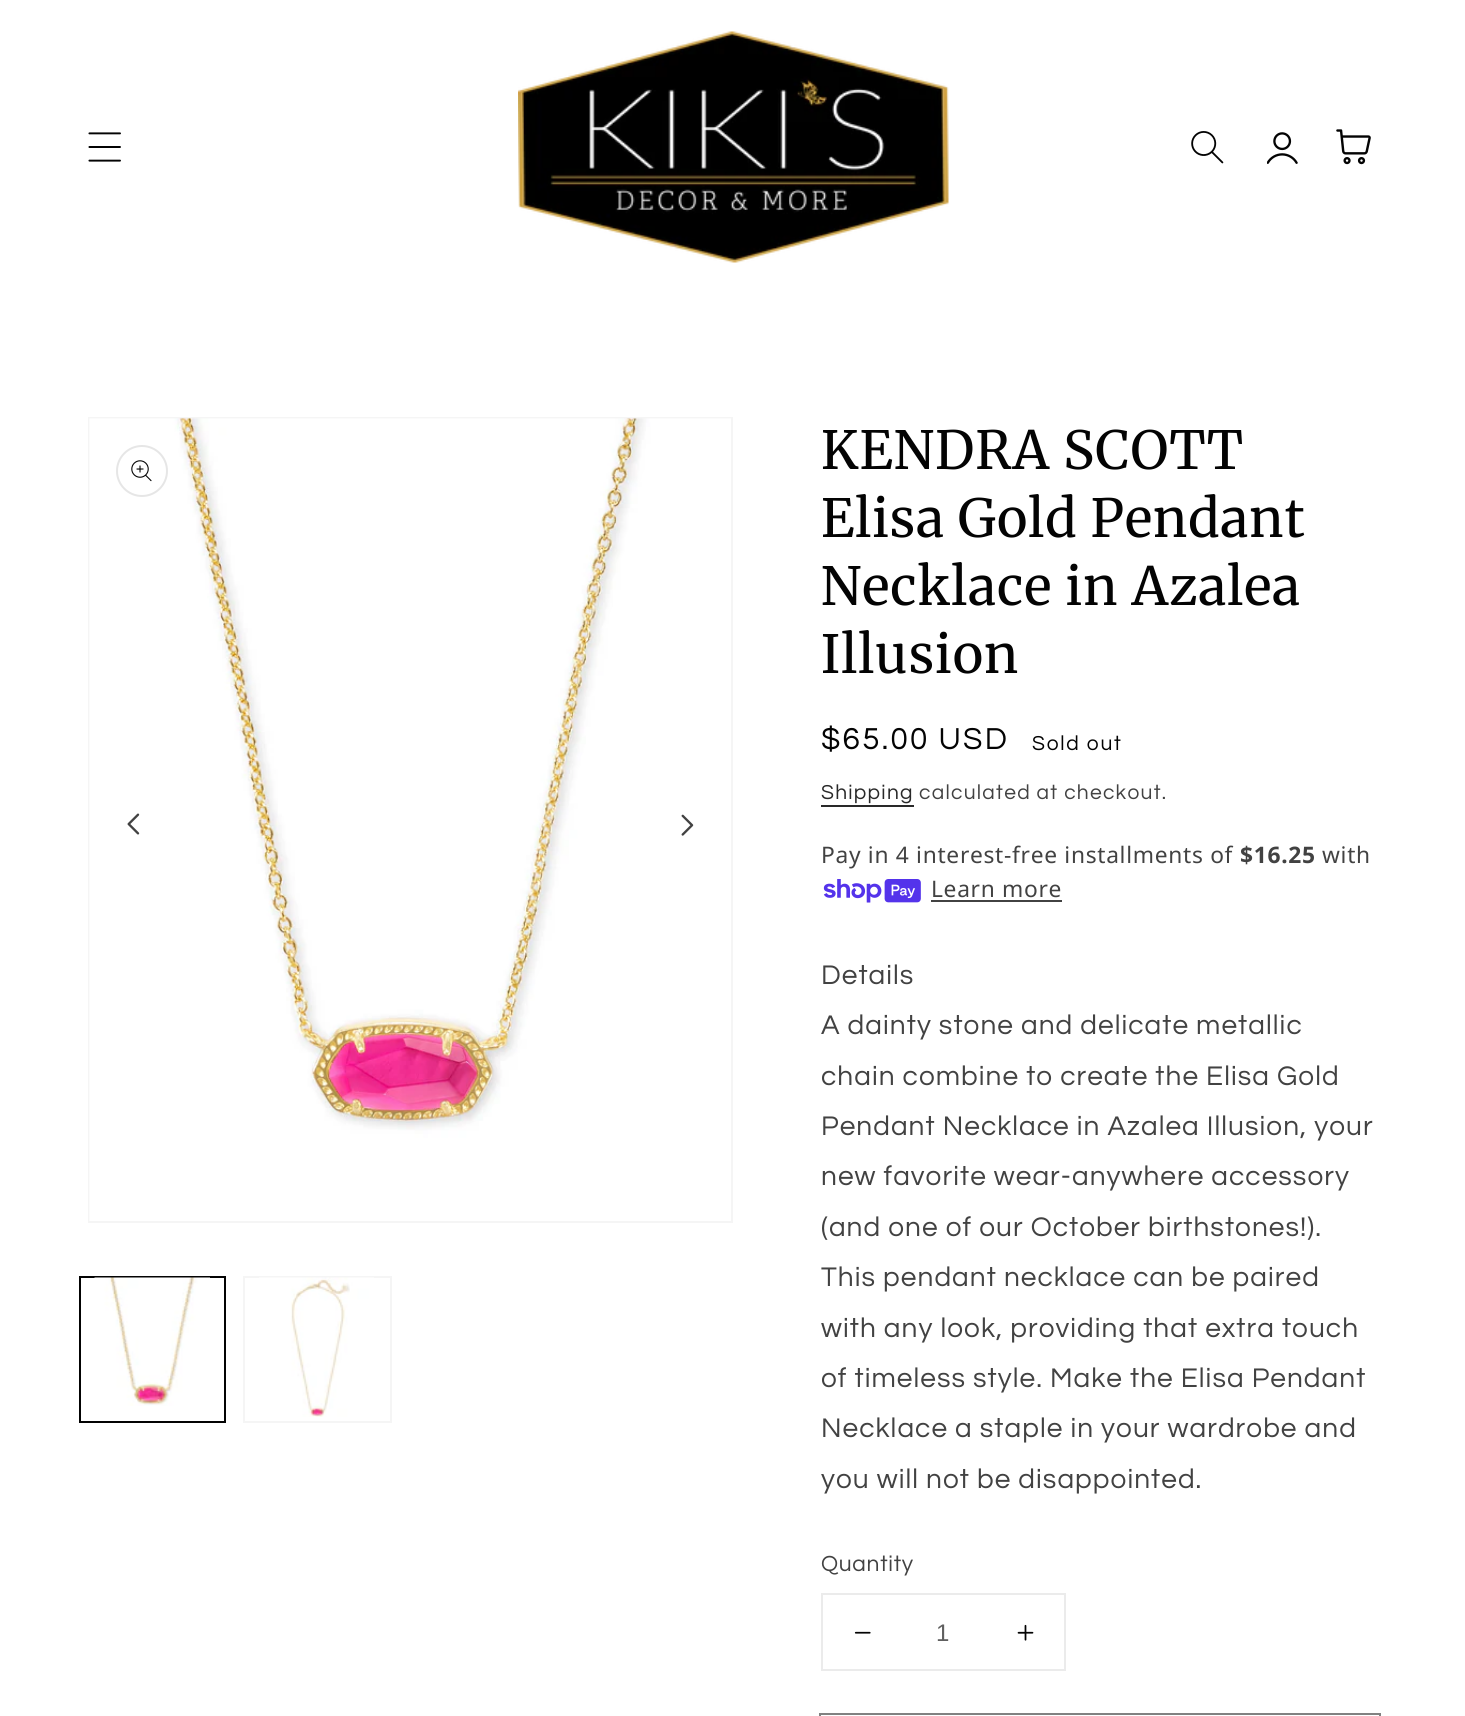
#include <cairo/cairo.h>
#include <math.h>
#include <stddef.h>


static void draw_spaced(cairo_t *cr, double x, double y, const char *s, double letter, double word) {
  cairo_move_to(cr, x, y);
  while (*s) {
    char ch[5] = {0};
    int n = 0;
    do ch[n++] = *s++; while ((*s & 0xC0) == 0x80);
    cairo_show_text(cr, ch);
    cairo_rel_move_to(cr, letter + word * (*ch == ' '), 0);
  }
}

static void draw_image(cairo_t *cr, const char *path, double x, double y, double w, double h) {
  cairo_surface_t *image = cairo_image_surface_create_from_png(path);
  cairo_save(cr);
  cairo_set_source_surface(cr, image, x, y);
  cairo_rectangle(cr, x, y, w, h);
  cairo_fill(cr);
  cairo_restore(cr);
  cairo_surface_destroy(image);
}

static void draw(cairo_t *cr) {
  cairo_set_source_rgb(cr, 1, 1, 1);
  cairo_paint(cr);
  draw_image(cr, "images/1.png", 88, 132, 33, 30);
  draw_image(cr, "images/2.png", 518, 31, 431, 232);
  draw_image(cr, "images/3.png", 1191, 131, 33, 33);
  draw_image(cr, "images/4.png", 1267, 132, 31, 32);
  draw_image(cr, "images/5.png", 1336, 129, 35, 36);
  cairo_rectangle(cr, 89, 418, 643, 804);
  cairo_set_source_rgb(cr, 245 / 255.0, 245 / 255.0, 245 / 255.0);
  cairo_stroke(cr);
  draw_image(cr, "images/6.png", 89, 418, 642, 803);
  cairo_arc(cr, 142, 471, 25, 0, 2 * M_PI);
  cairo_set_source_rgb(cr, 230 / 255.0, 230 / 255.0, 230 / 255.0);
  cairo_stroke(cr);
  draw_image(cr, "images/7.png", 131, 460, 21, 22);
  draw_image(cr, "images/8.png", 127, 813, 13, 22);
  draw_image(cr, "images/9.png", 681, 814, 13, 22);
  cairo_rectangle(cr, 80, 1277, 145, 145);
  cairo_set_source_rgb(cr, 3 / 255.0, 3 / 255.0, 3 / 255.0);
  cairo_stroke(cr);
  draw_image(cr, "images/10.png", 94, 1277, 116, 129);
  cairo_rectangle(cr, 244, 1277, 147, 145);
  cairo_set_source_rgb(cr, 245 / 255.0, 245 / 255.0, 245 / 255.0);
  cairo_stroke(cr);
  draw_image(cr, "images/11.png", 259, 1277, 115, 140);
  cairo_set_source_rgb(cr, 41 / 255.0, 41 / 255.0, 41 / 255.0);
  cairo_rectangle(cr, 821, 805, 93, 2);
  cairo_fill(cr);
  draw_image(cr, "images/12.png", 823, 879, 98, 24);
  cairo_set_source_rgb(cr, 66 / 255.0, 66 / 255.0, 66 / 255.0);
  cairo_rectangle(cr, 931, 900, 131, 2);
  cairo_fill(cr);
  cairo_rectangle(cr, 822, 1594, 243, 76);
  cairo_set_source_rgb(cr, 235 / 255.0, 235 / 255.0, 235 / 255.0);
  cairo_stroke(cr);
  draw_image(cr, "images/13.png", 854, 1631, 17, 3);
  draw_image(cr, "images/14.png", 1017, 1624, 17, 17);
  cairo_rectangle(cr, 820, 1714, 560, 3);
  cairo_set_source_rgb(cr, 129 / 255.0, 129 / 255.0, 129 / 255.0);
  cairo_stroke(cr);
  cairo_select_font_face(cr, "Merriweather", CAIRO_FONT_SLANT_NORMAL, CAIRO_FONT_WEIGHT_NORMAL);
  cairo_set_font_size(cr, 52.5);
  cairo_set_source_rgb(cr, 3 / 255.0, 3 / 255.0, 3 / 255.0);
  draw_spaced(cr, 821, 469, "KENDRA SCOTT", 1.05, 0);
  draw_spaced(cr, 821, 537, "Elisa Gold Pendant", 1.05, 0);
  draw_spaced(cr, 821, 605, "Necklace in Azalea", 1.05, 0);
  draw_spaced(cr, 821, 673, "Illusion", 1.05, 0);
  cairo_select_font_face(cr, "Questrial", CAIRO_FONT_SLANT_NORMAL, CAIRO_FONT_WEIGHT_NORMAL);
  cairo_set_font_size(cr, 31.5);
  draw_spaced(cr, 821, 749, "$65.00 USD", 2.25, 0);
  cairo_set_font_size(cr, 21);
  draw_spaced(cr, 1032, 750, "Sold out", 1.75, 0);
  cairo_set_source_rgb(cr, 41 / 255.0, 41 / 255.0, 41 / 255.0);
  draw_spaced(cr, 821, 799, "Shipping", 1.25, 0);
  cairo_set_source_rgb(cr, 66 / 255.0, 66 / 255.0, 66 / 255.0);
  draw_spaced(cr, 919, 799, "calculated at checkout.", 1.25, 0);
  cairo_select_font_face(cr, "Noto Sans", CAIRO_FONT_SLANT_NORMAL, CAIRO_FONT_WEIGHT_NORMAL);
  cairo_set_font_size(cr, 22.75);
  draw_spaced(cr, 821, 863, "Pay in 4 interest-free installments of", 0.7, 0);
  cairo_select_font_face(cr, "Noto Sans", CAIRO_FONT_SLANT_NORMAL, CAIRO_FONT_WEIGHT_BOLD);
  draw_spaced(cr, 1240, 863, "$16.25", 0.7, 0);
  cairo_select_font_face(cr, "Noto Sans", CAIRO_FONT_SLANT_NORMAL, CAIRO_FONT_WEIGHT_NORMAL);
  draw_spaced(cr, 1322, 863, "with", 0.7, 0);
  draw_spaced(cr, 931, 897, "Learn more", 0.7, 0);
  cairo_select_font_face(cr, "Questrial", CAIRO_FONT_SLANT_NORMAL, CAIRO_FONT_WEIGHT_NORMAL);
  cairo_set_font_size(cr, 28);
  draw_spaced(cr, 821, 984, "Details", 1.05, 0);
  draw_spaced(cr, 821, 1034, "A dainty stone and delicate metallic", 1.05, 0);
  draw_spaced(cr, 821, 1085, "chain combine to create the Elisa Gold", 1.05, 0);
  draw_spaced(cr, 821, 1135, "Pendant Necklace in Azalea Illusion, your", 1.05, 0);
  draw_spaced(cr, 821, 1185, "new favorite wear-anywhere accessory", 1.05, 0);
  draw_spaced(cr, 821, 1236, "(and one of our October birthstones!).", 1.05, 0);
  draw_spaced(cr, 821, 1286, "This pendant necklace can be paired", 1.05, 0);
  draw_spaced(cr, 821, 1337, "with any look, providing that extra touch", 1.05, 0);
  draw_spaced(cr, 821, 1387, "of timeless style. Make the Elisa Pendant", 1.05, 0);
  draw_spaced(cr, 821, 1437, "Necklace a staple in your wardrobe and", 1.05, 0);
  draw_spaced(cr, 821, 1488, "you will not be disappointed.", 1.05, 0);
  cairo_set_font_size(cr, 22.75);
  draw_spaced(cr, 821, 1571, "Quantity", 0.7, 0);
  cairo_select_font_face(cr, "Liberation Sans", CAIRO_FONT_SLANT_NORMAL, CAIRO_FONT_WEIGHT_NORMAL);
  cairo_set_font_size(cr, 24);
  cairo_set_source_rgb(cr, 95 / 255.0, 95 / 255.0, 95 / 255.0);
  cairo_move_to(cr, 936, 1641);
  cairo_show_text(cr, "1");
}

int main(void) {
  cairo_surface_t *surface = cairo_image_surface_create(CAIRO_FORMAT_RGB24, 1465, 1716);
  cairo_t *cr = cairo_create(surface);
  cairo_font_options_t *options = cairo_font_options_create();
  cairo_font_options_set_hint_metrics(options, CAIRO_HINT_METRICS_OFF);
  cairo_font_options_set_hint_style(options, CAIRO_HINT_STYLE_NONE);
  cairo_set_font_options(cr, options);
  cairo_set_miter_limit(cr, 4);
  draw(cr);
  cairo_surface_write_to_png(surface, "out.png");
  cairo_font_options_destroy(options);
  cairo_destroy(cr);
  cairo_surface_destroy(surface);
  return 0;
}
